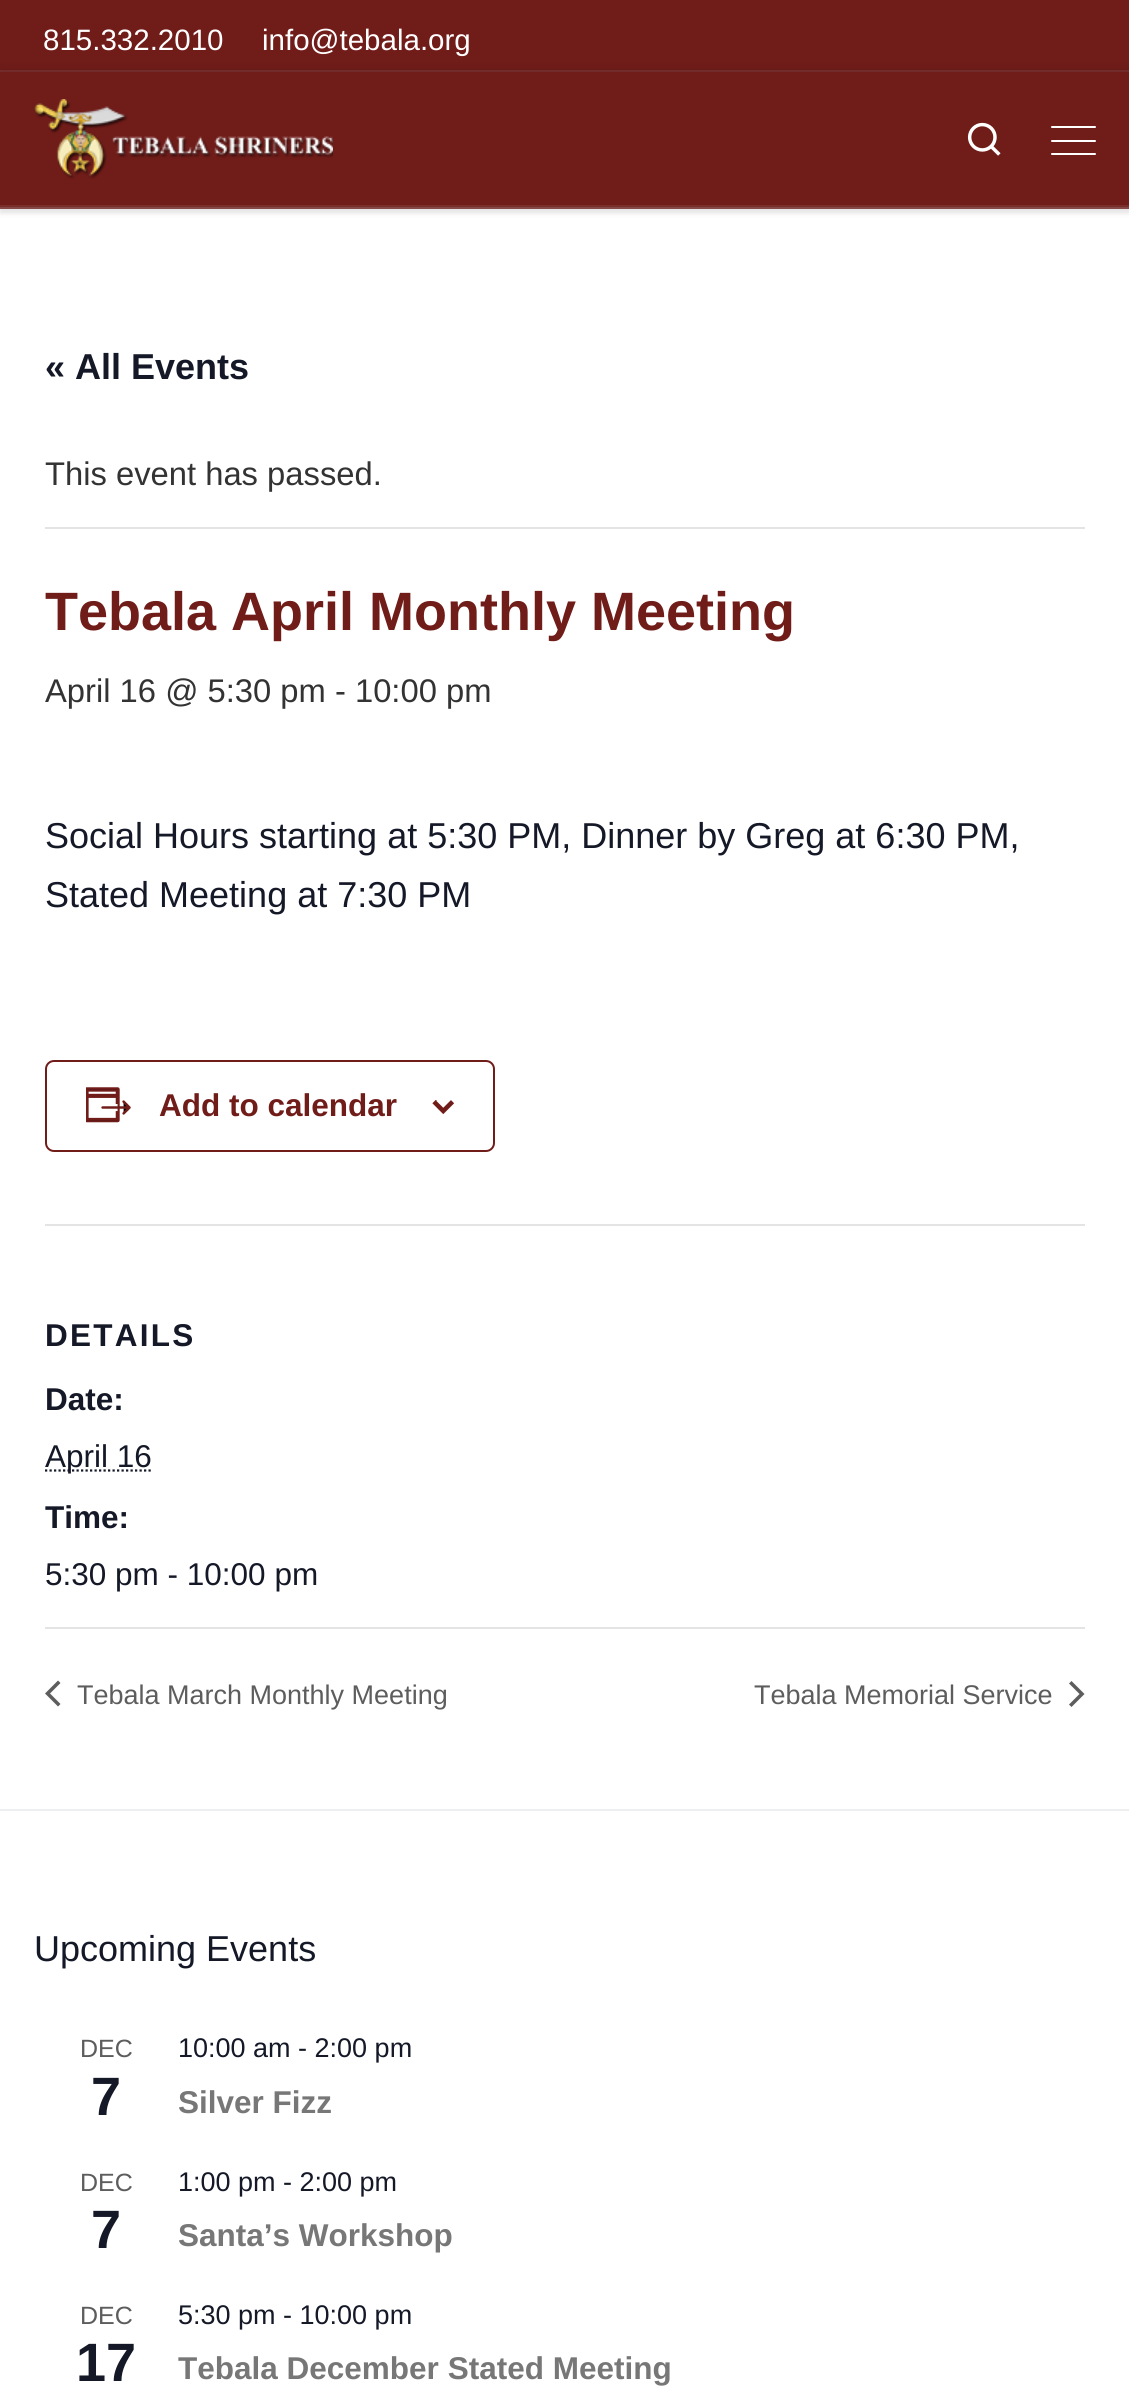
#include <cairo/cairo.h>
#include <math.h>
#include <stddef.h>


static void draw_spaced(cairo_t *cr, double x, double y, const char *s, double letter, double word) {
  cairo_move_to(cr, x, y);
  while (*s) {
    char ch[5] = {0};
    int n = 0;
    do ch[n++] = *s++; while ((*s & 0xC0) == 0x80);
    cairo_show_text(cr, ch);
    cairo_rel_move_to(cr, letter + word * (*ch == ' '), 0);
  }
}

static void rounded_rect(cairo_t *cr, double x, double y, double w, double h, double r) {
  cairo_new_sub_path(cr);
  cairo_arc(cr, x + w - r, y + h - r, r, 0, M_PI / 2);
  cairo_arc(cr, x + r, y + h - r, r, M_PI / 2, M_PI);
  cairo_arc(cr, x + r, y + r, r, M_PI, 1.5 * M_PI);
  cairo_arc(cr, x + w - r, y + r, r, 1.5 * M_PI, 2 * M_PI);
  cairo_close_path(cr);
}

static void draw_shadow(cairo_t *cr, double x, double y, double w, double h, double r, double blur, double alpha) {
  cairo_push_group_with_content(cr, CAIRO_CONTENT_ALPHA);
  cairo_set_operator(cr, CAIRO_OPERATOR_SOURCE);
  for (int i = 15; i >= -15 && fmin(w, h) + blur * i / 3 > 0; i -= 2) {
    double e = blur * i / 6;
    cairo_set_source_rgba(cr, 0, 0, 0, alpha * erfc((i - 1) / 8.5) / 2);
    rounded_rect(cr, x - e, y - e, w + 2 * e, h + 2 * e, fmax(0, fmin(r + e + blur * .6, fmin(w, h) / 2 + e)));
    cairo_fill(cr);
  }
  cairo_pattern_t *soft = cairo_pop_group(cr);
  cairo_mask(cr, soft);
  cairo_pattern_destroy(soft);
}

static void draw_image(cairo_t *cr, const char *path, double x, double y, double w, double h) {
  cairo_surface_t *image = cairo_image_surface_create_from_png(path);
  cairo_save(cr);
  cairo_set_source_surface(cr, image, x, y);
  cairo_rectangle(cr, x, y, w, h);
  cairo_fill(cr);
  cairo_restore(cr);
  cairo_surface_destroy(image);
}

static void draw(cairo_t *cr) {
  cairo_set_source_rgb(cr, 1, 1, 1);
  cairo_paint(cr);
  cairo_set_source_rgb(cr, 102 / 255.0, 102 / 255.0, 102 / 255.0);
  draw_shadow(cr, 0, 5, 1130, 209, 0, 2, 0.08);
  cairo_set_source_rgb(cr, 112 / 255.0, 28 / 255.0, 25 / 255.0);
  cairo_rectangle(cr, 0, 0, 1129, 205);
  cairo_fill(cr);
  cairo_set_source_rgb(cr, 125 / 255.0, 48 / 255.0, 46 / 255.0);
  cairo_rectangle(cr, 0, 70, 1129, 2);
  cairo_fill(cr);
  cairo_set_source_rgb(cr, 145 / 255.0, 79 / 255.0, 77 / 255.0);
  cairo_new_path(cr);
  cairo_move_to(cr, 0, 207);
  cairo_line_to(cr, 0, 209);
  cairo_line_to(cr, 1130, 209);
  cairo_line_to(cr, 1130, 74);
  cairo_line_to(cr, 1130, 207);
  cairo_close_path(cr);
  cairo_fill(cr);
  cairo_save(cr);
  cairo_set_fill_rule(cr, CAIRO_FILL_RULE_EVEN_ODD);
  cairo_new_path(cr);
  cairo_move_to(cr, 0, 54);
  cairo_line_to(cr, 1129, 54);
  cairo_line_to(cr, 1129, 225);
  cairo_line_to(cr, 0, 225);
  cairo_close_path(cr);
  cairo_move_to(cr, 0, 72);
  cairo_line_to(cr, 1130, 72);
  cairo_line_to(cr, 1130, 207);
  cairo_line_to(cr, 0, 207);
  cairo_close_path(cr);
  cairo_clip(cr);
  cairo_set_source_rgb(cr, 0, 0, 0);
  draw_shadow(cr, 0, 72, 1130, 135, 0, 5.5, 0.2);
  cairo_restore(cr);
  draw_image(cr, "images/1.png", 34, 99, 299, 80);
  draw_image(cr, "images/2.png", 967, 122, 34, 34);
  cairo_set_source_rgb(cr, 1, 1, 1);
  rounded_rect(cr, 1051, 126, 45, 2, 1);
  cairo_fill(cr);
  rounded_rect(cr, 1051, 140, 45, 2, 1);
  cairo_fill(cr);
  rounded_rect(cr, 1051, 153, 45, 2, 1);
  cairo_fill(cr);
  cairo_set_source_rgb(cr, 123 / 255.0, 45 / 255.0, 42 / 255.0);
  cairo_rectangle(cr, 0, 205, 1129, 2);
  cairo_fill(cr);
  cairo_set_source_rgb(cr, 228 / 255.0, 228 / 255.0, 228 / 255.0);
  cairo_rectangle(cr, 45, 527, 1040, 2);
  cairo_fill(cr);
  rounded_rect(cr, 46, 1061, 448, 90, 8);
  cairo_set_source_rgb(cr, 112 / 255.0, 28 / 255.0, 25 / 255.0);
  cairo_stroke(cr);
  draw_image(cr, "images/3.png", 86, 1087, 45, 36);
  draw_image(cr, "images/4.png", 432, 1100, 22, 14);
  cairo_set_source_rgb(cr, 228 / 255.0, 228 / 255.0, 228 / 255.0);
  cairo_rectangle(cr, 45, 1224, 1040, 2);
  cairo_fill(cr);
  cairo_new_path(cr);
  cairo_move_to(cr, 45, 1470.5);
  cairo_line_to(cr, 152, 1470.5);
  cairo_set_source_rgb(cr, 20 / 255.0, 24 / 255.0, 39 / 255.0);
  cairo_set_line_width(cr, 2.2);
  cairo_set_dash(cr, (double[]){2.25, 2.25}, 2, 0);
  cairo_stroke(cr);
  cairo_set_source_rgb(cr, 228 / 255.0, 228 / 255.0, 228 / 255.0);
  cairo_rectangle(cr, 45, 1627, 1040, 2);
  cairo_fill(cr);
  cairo_set_source_rgb(cr, 93 / 255.0, 93 / 255.0, 93 / 255.0);
  cairo_new_path(cr);
  cairo_move_to(cr, 60.5, 1704);
  cairo_line_to(cr, 58, 1706.5);
  cairo_line_to(cr, 45, 1693.5);
  cairo_line_to(cr, 58, 1680.5);
  cairo_line_to(cr, 60.5, 1683);
  cairo_line_to(cr, 50, 1693.5);
  cairo_close_path(cr);
  cairo_fill(cr);
  cairo_new_path(cr);
  cairo_move_to(cr, 1069, 1683.5);
  cairo_line_to(cr, 1071.5, 1681);
  cairo_line_to(cr, 1084.5, 1694);
  cairo_line_to(cr, 1071.5, 1707);
  cairo_line_to(cr, 1069, 1704.5);
  cairo_line_to(cr, 1079.5, 1694);
  cairo_close_path(cr);
  cairo_fill(cr);
  cairo_set_source_rgb(cr, 236 / 255.0, 238 / 255.0, 239 / 255.0);
  cairo_rectangle(cr, 0, 1809, 1129, 2);
  cairo_fill(cr);
  cairo_select_font_face(cr, "Liberation Sans", CAIRO_FONT_SLANT_NORMAL, CAIRO_FONT_WEIGHT_NORMAL);
  cairo_set_font_size(cr, 29.5);
  cairo_set_source_rgb(cr, 1, 1, 1);
  cairo_move_to(cr, 43, 50);
  cairo_show_text(cr, "815.332.2010");
  cairo_move_to(cr, 262, 50);
  cairo_show_text(cr, "info@tebala.org");
  cairo_select_font_face(cr, "Liberation Sans", CAIRO_FONT_SLANT_NORMAL, CAIRO_FONT_WEIGHT_BOLD);
  cairo_set_font_size(cr, 36);
  cairo_set_source_rgb(cr, 20 / 255.0, 24 / 255.0, 39 / 255.0);
  cairo_move_to(cr, 45, 379);
  cairo_show_text(cr, "« All Events");
  cairo_select_font_face(cr, "Liberation Sans", CAIRO_FONT_SLANT_NORMAL, CAIRO_FONT_WEIGHT_NORMAL);
  cairo_set_font_size(cr, 32.75);
  cairo_set_source_rgb(cr, 51 / 255.0, 51 / 255.0, 51 / 255.0);
  cairo_move_to(cr, 45, 485);
  cairo_show_text(cr, "This event has passed.");
  cairo_select_font_face(cr, "Liberation Sans", CAIRO_FONT_SLANT_NORMAL, CAIRO_FONT_WEIGHT_BOLD);
  cairo_set_font_size(cr, 54);
  cairo_set_source_rgb(cr, 112 / 255.0, 28 / 255.0, 25 / 255.0);
  cairo_move_to(cr, 45, 630);
  cairo_show_text(cr, "Tebala April Monthly Meeting");
  cairo_select_font_face(cr, "Liberation Sans", CAIRO_FONT_SLANT_NORMAL, CAIRO_FONT_WEIGHT_NORMAL);
  cairo_set_font_size(cr, 32.75);
  cairo_set_source_rgb(cr, 51 / 255.0, 51 / 255.0, 51 / 255.0);
  cairo_move_to(cr, 45, 702);
  cairo_show_text(cr, "April 16 @ 5:30 pm - 10:00 pm");
  cairo_set_font_size(cr, 36);
  cairo_set_source_rgb(cr, 20 / 255.0, 24 / 255.0, 39 / 255.0);
  cairo_move_to(cr, 45, 848);
  cairo_show_text(cr, "Social Hours starting at 5:30 PM, Dinner by Greg at 6:30 PM,");
  cairo_move_to(cr, 45, 907);
  cairo_show_text(cr, "Stated Meeting at 7:30 PM");
  cairo_select_font_face(cr, "Liberation Sans", CAIRO_FONT_SLANT_NORMAL, CAIRO_FONT_WEIGHT_BOLD);
  cairo_set_font_size(cr, 31.5);
  cairo_set_source_rgb(cr, 112 / 255.0, 28 / 255.0, 25 / 255.0);
  cairo_move_to(cr, 159, 1116);
  cairo_show_text(cr, "Add to calendar");
  cairo_set_source_rgb(cr, 20 / 255.0, 24 / 255.0, 39 / 255.0);
  draw_spaced(cr, 45, 1346, "DETAILS", 2.25, 0);
  cairo_move_to(cr, 45, 1410);
  cairo_show_text(cr, "Date:");
  cairo_select_font_face(cr, "Liberation Sans", CAIRO_FONT_SLANT_NORMAL, CAIRO_FONT_WEIGHT_NORMAL);
  cairo_move_to(cr, 45, 1467);
  cairo_show_text(cr, "April 16");
  cairo_select_font_face(cr, "Liberation Sans", CAIRO_FONT_SLANT_NORMAL, CAIRO_FONT_WEIGHT_BOLD);
  cairo_move_to(cr, 45, 1528);
  cairo_show_text(cr, "Time:");
  cairo_select_font_face(cr, "Liberation Sans", CAIRO_FONT_SLANT_NORMAL, CAIRO_FONT_WEIGHT_NORMAL);
  cairo_move_to(cr, 45, 1585);
  cairo_show_text(cr, "5:30 pm - 10:00 pm");
  cairo_set_font_size(cr, 27);
  cairo_set_source_rgb(cr, 93 / 255.0, 93 / 255.0, 93 / 255.0);
  cairo_move_to(cr, 77, 1704);
  cairo_show_text(cr, "Tebala March Monthly Meeting");
  cairo_move_to(cr, 754, 1704);
  cairo_show_text(cr, "Tebala Memorial Service");
  cairo_set_font_size(cr, 36);
  cairo_set_source_rgb(cr, 20 / 255.0, 24 / 255.0, 39 / 255.0);
  cairo_move_to(cr, 34, 1961);
  cairo_show_text(cr, "Upcoming Events");
  cairo_set_font_size(cr, 25);
  cairo_set_source_rgb(cr, 93 / 255.0, 93 / 255.0, 93 / 255.0);
  cairo_move_to(cr, 80, 2057);
  cairo_show_text(cr, "DEC");
  cairo_select_font_face(cr, "Liberation Sans", CAIRO_FONT_SLANT_NORMAL, CAIRO_FONT_WEIGHT_BOLD);
  cairo_set_font_size(cr, 54);
  cairo_set_source_rgb(cr, 20 / 255.0, 24 / 255.0, 39 / 255.0);
  cairo_move_to(cr, 91, 2115);
  cairo_show_text(cr, "7");
  cairo_select_font_face(cr, "Liberation Sans", CAIRO_FONT_SLANT_NORMAL, CAIRO_FONT_WEIGHT_NORMAL);
  cairo_set_font_size(cr, 27);
  cairo_move_to(cr, 178, 2057);
  cairo_show_text(cr, "10:00 am - 2:00 pm");
  cairo_select_font_face(cr, "Liberation Sans", CAIRO_FONT_SLANT_NORMAL, CAIRO_FONT_WEIGHT_BOLD);
  cairo_set_font_size(cr, 31.5);
  cairo_set_source_rgb(cr, 119 / 255.0, 119 / 255.0, 119 / 255.0);
  cairo_move_to(cr, 178, 2113);
  cairo_show_text(cr, "Silver Fizz");
  cairo_select_font_face(cr, "Liberation Sans", CAIRO_FONT_SLANT_NORMAL, CAIRO_FONT_WEIGHT_NORMAL);
  cairo_set_font_size(cr, 25);
  cairo_set_source_rgb(cr, 93 / 255.0, 93 / 255.0, 93 / 255.0);
  cairo_move_to(cr, 80, 2191);
  cairo_show_text(cr, "DEC");
  cairo_select_font_face(cr, "Liberation Sans", CAIRO_FONT_SLANT_NORMAL, CAIRO_FONT_WEIGHT_BOLD);
  cairo_set_font_size(cr, 54);
  cairo_set_source_rgb(cr, 20 / 255.0, 24 / 255.0, 39 / 255.0);
  cairo_move_to(cr, 91, 2248);
  cairo_show_text(cr, "7");
  cairo_select_font_face(cr, "Liberation Sans", CAIRO_FONT_SLANT_NORMAL, CAIRO_FONT_WEIGHT_NORMAL);
  cairo_set_font_size(cr, 27);
  cairo_move_to(cr, 178, 2191);
  cairo_show_text(cr, "1:00 pm - 2:00 pm");
  cairo_select_font_face(cr, "Liberation Sans", CAIRO_FONT_SLANT_NORMAL, CAIRO_FONT_WEIGHT_BOLD);
  cairo_set_font_size(cr, 31.5);
  cairo_set_source_rgb(cr, 119 / 255.0, 119 / 255.0, 119 / 255.0);
  cairo_move_to(cr, 178, 2246);
  cairo_show_text(cr, "Santa’s Workshop");
  cairo_select_font_face(cr, "Liberation Sans", CAIRO_FONT_SLANT_NORMAL, CAIRO_FONT_WEIGHT_NORMAL);
  cairo_set_font_size(cr, 25);
  cairo_set_source_rgb(cr, 93 / 255.0, 93 / 255.0, 93 / 255.0);
  cairo_move_to(cr, 80, 2324);
  cairo_show_text(cr, "DEC");
  cairo_select_font_face(cr, "Liberation Sans", CAIRO_FONT_SLANT_NORMAL, CAIRO_FONT_WEIGHT_BOLD);
  cairo_set_font_size(cr, 54);
  cairo_set_source_rgb(cr, 20 / 255.0, 24 / 255.0, 39 / 255.0);
  cairo_move_to(cr, 76, 2381);
  cairo_show_text(cr, "17");
  cairo_select_font_face(cr, "Liberation Sans", CAIRO_FONT_SLANT_NORMAL, CAIRO_FONT_WEIGHT_NORMAL);
  cairo_set_font_size(cr, 27);
  cairo_move_to(cr, 178, 2324);
  cairo_show_text(cr, "5:30 pm - 10:00 pm");
  cairo_select_font_face(cr, "Liberation Sans", CAIRO_FONT_SLANT_NORMAL, CAIRO_FONT_WEIGHT_BOLD);
  cairo_set_font_size(cr, 31.5);
  cairo_set_source_rgb(cr, 119 / 255.0, 119 / 255.0, 119 / 255.0);
  cairo_move_to(cr, 178, 2379);
  cairo_show_text(cr, "Tebala December Stated Meeting");
}

int main(void) {
  cairo_surface_t *surface = cairo_image_surface_create(CAIRO_FORMAT_RGB24, 1129, 2408);
  cairo_t *cr = cairo_create(surface);
  cairo_font_options_t *options = cairo_font_options_create();
  cairo_font_options_set_hint_metrics(options, CAIRO_HINT_METRICS_OFF);
  cairo_font_options_set_hint_style(options, CAIRO_HINT_STYLE_NONE);
  cairo_set_font_options(cr, options);
  cairo_set_miter_limit(cr, 4);
  draw(cr);
  cairo_surface_write_to_png(surface, "out.png");
  cairo_font_options_destroy(options);
  cairo_destroy(cr);
  cairo_surface_destroy(surface);
  return 0;
}
